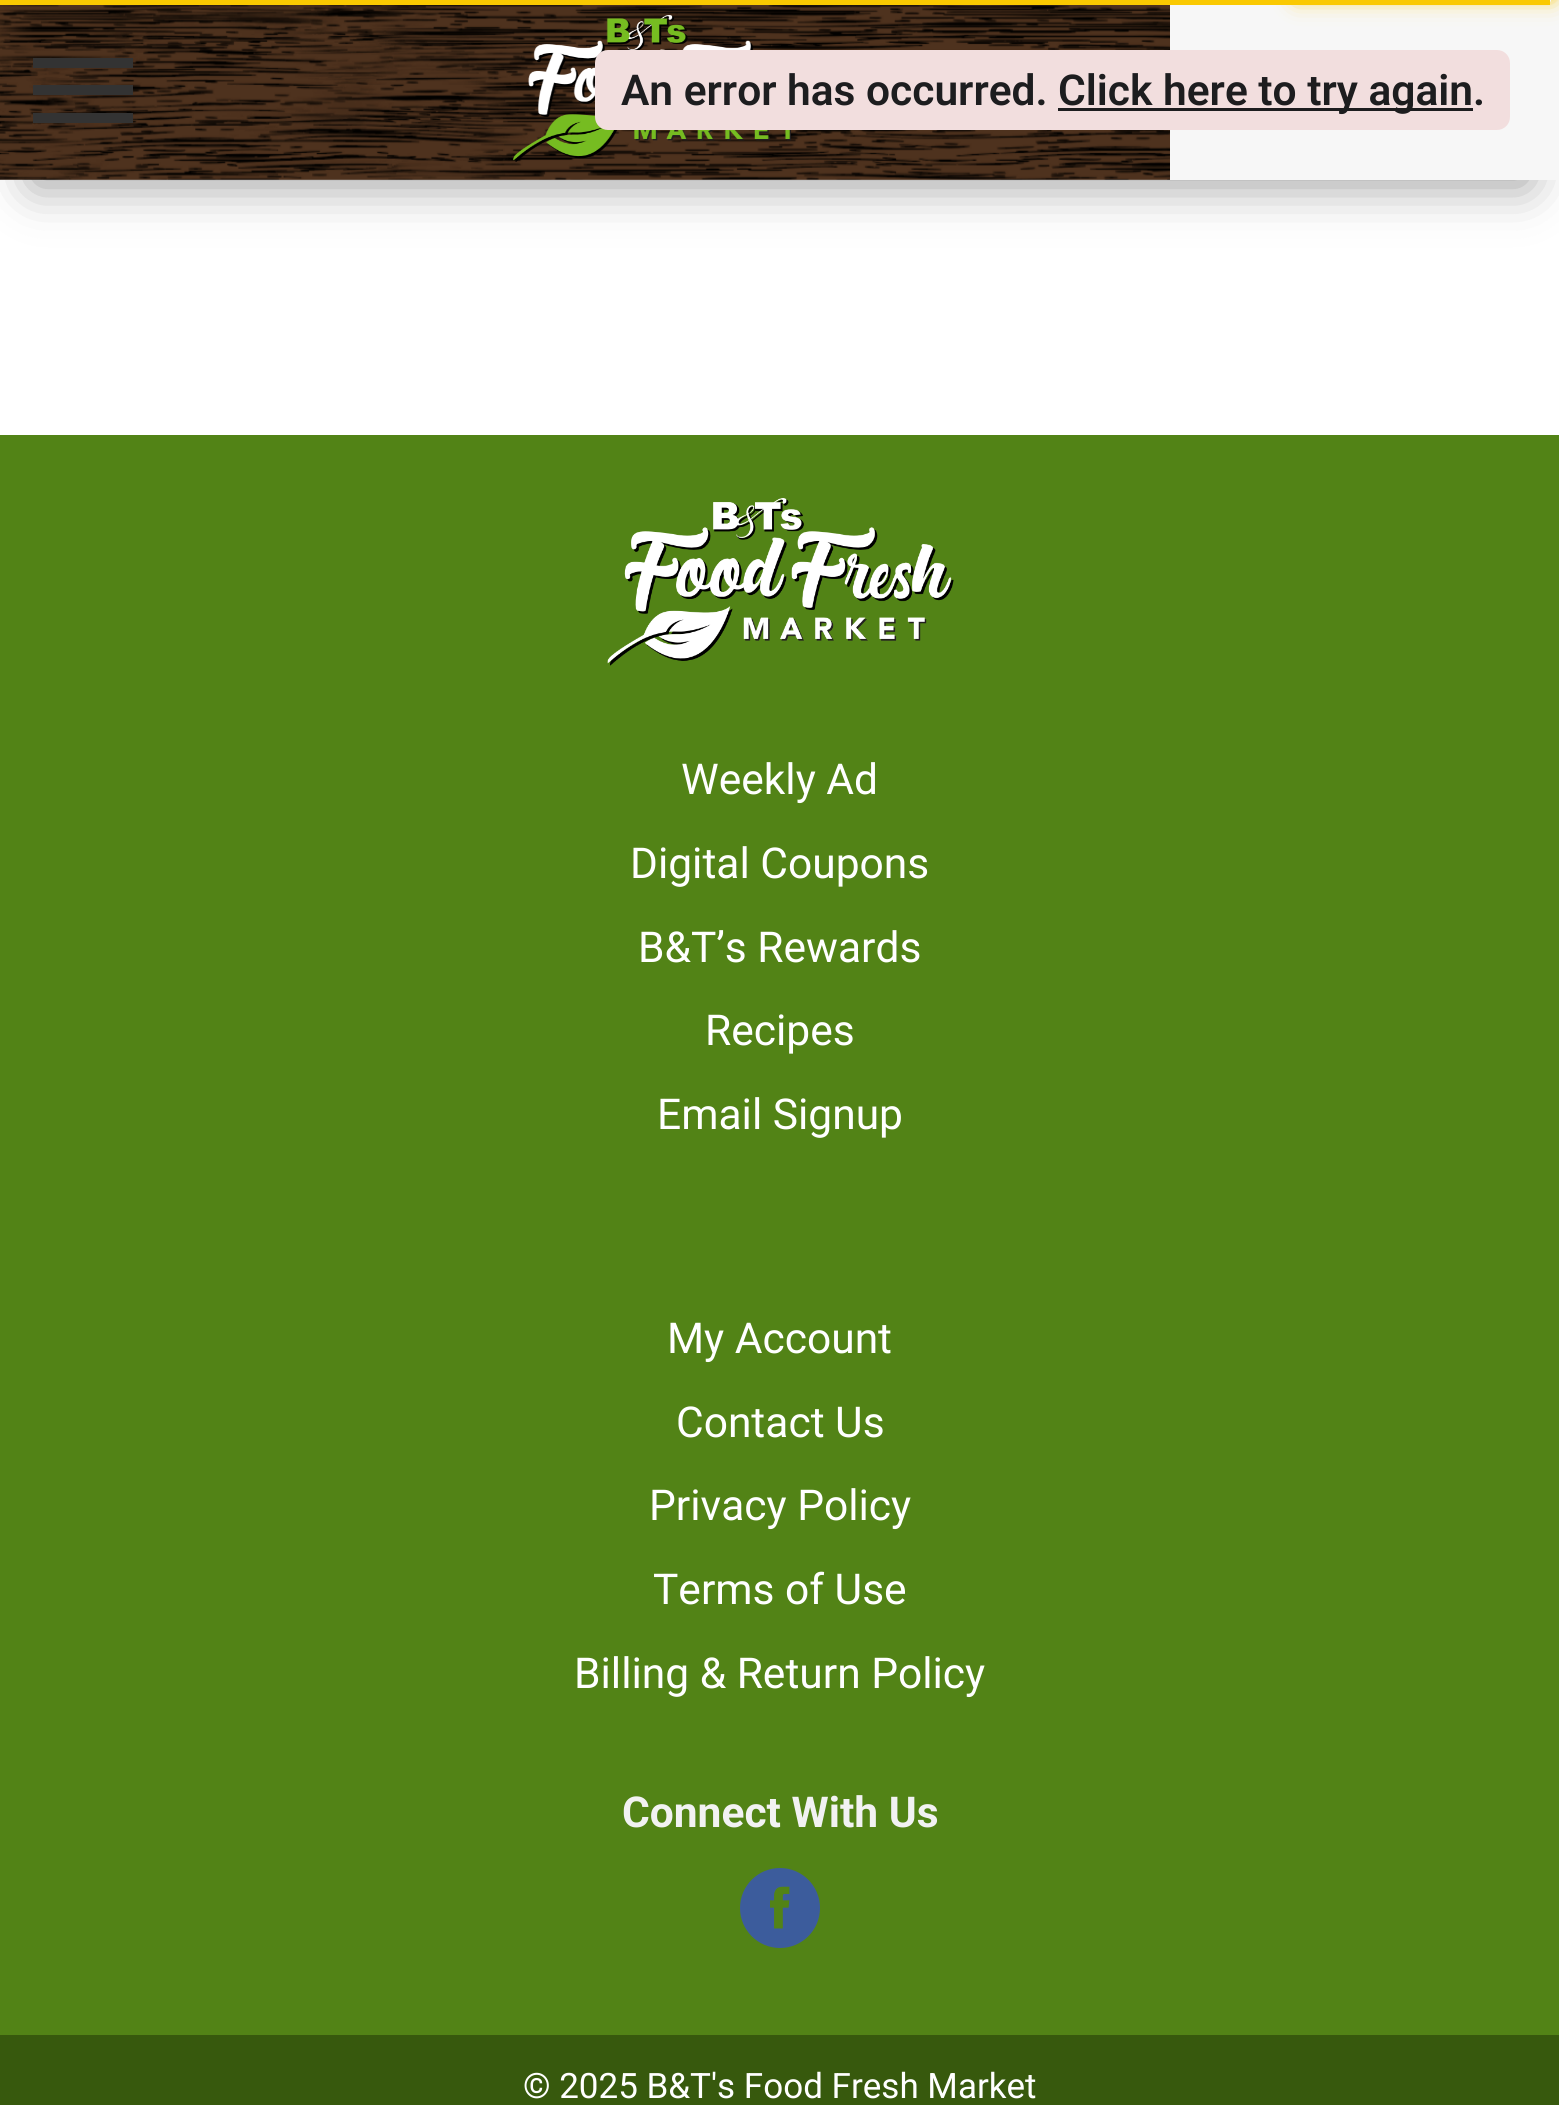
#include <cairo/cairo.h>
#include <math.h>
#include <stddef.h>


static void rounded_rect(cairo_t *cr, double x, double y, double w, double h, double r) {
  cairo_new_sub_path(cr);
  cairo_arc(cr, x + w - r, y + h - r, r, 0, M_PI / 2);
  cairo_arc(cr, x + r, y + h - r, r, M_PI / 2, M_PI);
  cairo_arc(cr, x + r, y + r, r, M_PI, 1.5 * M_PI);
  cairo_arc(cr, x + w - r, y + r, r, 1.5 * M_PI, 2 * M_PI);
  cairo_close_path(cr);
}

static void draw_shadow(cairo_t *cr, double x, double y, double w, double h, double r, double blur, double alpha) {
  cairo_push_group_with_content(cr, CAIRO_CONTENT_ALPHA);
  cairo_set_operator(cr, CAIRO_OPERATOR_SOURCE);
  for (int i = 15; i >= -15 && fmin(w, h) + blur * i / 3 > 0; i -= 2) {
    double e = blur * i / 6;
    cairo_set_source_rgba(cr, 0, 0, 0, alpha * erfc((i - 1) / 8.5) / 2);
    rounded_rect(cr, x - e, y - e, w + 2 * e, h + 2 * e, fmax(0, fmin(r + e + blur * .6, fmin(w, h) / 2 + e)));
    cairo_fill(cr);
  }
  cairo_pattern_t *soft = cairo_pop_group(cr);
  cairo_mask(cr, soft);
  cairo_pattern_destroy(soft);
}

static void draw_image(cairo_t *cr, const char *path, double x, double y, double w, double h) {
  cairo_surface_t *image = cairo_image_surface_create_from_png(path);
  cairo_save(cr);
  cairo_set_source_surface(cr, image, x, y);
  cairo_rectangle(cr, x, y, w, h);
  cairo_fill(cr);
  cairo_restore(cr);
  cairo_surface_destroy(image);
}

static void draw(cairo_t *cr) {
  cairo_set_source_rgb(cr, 1, 1, 1);
  cairo_paint(cr);
  cairo_set_source_rgb(cr, 0, 0, 0);
  draw_shadow(cr, 33, 70, 1495, 115, 0, 25, 0.4);
  cairo_set_source_rgb(cr, 247 / 255.0, 247 / 255.0, 247 / 255.0);
  cairo_rectangle(cr, 1170, 0, 389, 180);
  cairo_fill(cr);
  cairo_set_source_rgb(cr, 250 / 255.0, 201 / 255.0, 1 / 255.0);
  cairo_rectangle(cr, 0, 0, 1550, 5);
  cairo_fill(cr);
  cairo_save(cr);
  cairo_set_fill_rule(cr, CAIRO_FILL_RULE_EVEN_ODD);
  cairo_new_path(cr);
  cairo_move_to(cr, 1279, 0);
  cairo_line_to(cr, 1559, 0);
  cairo_line_to(cr, 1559, 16);
  cairo_line_to(cr, 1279, 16);
  cairo_close_path(cr);
  cairo_move_to(cr, 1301.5, -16.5);
  cairo_line_to(cr, 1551, -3.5);
  cairo_line_to(cr, 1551, 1.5);
  cairo_line_to(cr, 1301, -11.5);
  cairo_close_path(cr);
  cairo_clip(cr);
  cairo_set_source_rgb(cr, 250 / 255.0, 201 / 255.0, 1 / 255.0);
  draw_shadow(cr, 1300, -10, 250, 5, 0, 6.5, 1);
  cairo_restore(cr);
  cairo_save(cr);
  cairo_set_fill_rule(cr, CAIRO_FILL_RULE_EVEN_ODD);
  cairo_new_path(cr);
  cairo_move_to(cr, 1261, 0);
  cairo_line_to(cr, 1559, 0);
  cairo_line_to(cr, 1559, 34);
  cairo_line_to(cr, 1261, 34);
  cairo_close_path(cr);
  cairo_move_to(cr, 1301.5, -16.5);
  cairo_line_to(cr, 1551, -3.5);
  cairo_line_to(cr, 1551, 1.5);
  cairo_line_to(cr, 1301, -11.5);
  cairo_close_path(cr);
  cairo_clip(cr);
  cairo_set_source_rgb(cr, 250 / 255.0, 201 / 255.0, 1 / 255.0);
  draw_shadow(cr, 1300, -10, 250, 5, 0, 12.5, 1);
  cairo_restore(cr);
  draw_image(cr, "images/1.png", 0, 5, 1170, 175);
  draw_image(cr, "images/2.png", 513, 15, 279, 147);
  cairo_set_source_rgb(cr, 242 / 255.0, 222 / 255.0, 222 / 255.0);
  rounded_rect(cr, 595, 50, 915, 80, 13);
  cairo_fill(cr);
  cairo_set_source_rgb(cr, 29 / 255.0, 29 / 255.0, 31 / 255.0);
  cairo_rectangle(cr, 1058, 108, 415, 3);
  cairo_fill(cr);
  cairo_set_source_rgb(cr, 51 / 255.0, 51 / 255.0, 51 / 255.0);
  cairo_rectangle(cr, 33, 85, 100, 10);
  cairo_fill(cr);
  cairo_rectangle(cr, 33, 58, 100, 10);
  cairo_fill(cr);
  cairo_rectangle(cr, 33, 113, 100, 10);
  cairo_fill(cr);
  cairo_set_source_rgb(cr, 82 / 255.0, 131 / 255.0, 22 / 255.0);
  cairo_rectangle(cr, 0, 435, 1559, 1600);
  cairo_fill(cr);
  draw_image(cr, "images/3.png", 607, 498, 347, 168);
  cairo_set_source_rgb(cr, 60 / 255.0, 92 / 255.0, 156 / 255.0);
  cairo_arc(cr, 780, 1908, 40, 0, 2 * M_PI);
  cairo_fill(cr);
  draw_image(cr, "images/4.png", 770, 1886, 20, 43);
  cairo_set_source_rgb(cr, 55 / 255.0, 89 / 255.0, 13 / 255.0);
  cairo_rectangle(cr, 0, 2035, 1559, 70);
  cairo_fill(cr);
  cairo_select_font_face(cr, "Roboto SemiBold", CAIRO_FONT_SLANT_NORMAL, CAIRO_FONT_WEIGHT_NORMAL);
  cairo_set_font_size(cr, 42.5);
  cairo_set_source_rgb(cr, 29 / 255.0, 29 / 255.0, 31 / 255.0);
  cairo_move_to(cr, 621, 105);
  cairo_show_text(cr, "An error has occurred.");
  cairo_move_to(cr, 1058, 105);
  cairo_show_text(cr, "Click here to try again.");
  cairo_select_font_face(cr, "Roboto", CAIRO_FONT_SLANT_NORMAL, CAIRO_FONT_WEIGHT_NORMAL);
  cairo_set_source_rgb(cr, 1, 1, 1);
  cairo_move_to(cr, 681, 794);
  cairo_show_text(cr, "Weekly Ad");
  cairo_move_to(cr, 630, 878);
  cairo_show_text(cr, "Digital Coupons");
  cairo_move_to(cr, 638, 962);
  cairo_show_text(cr, "B&T’s Rewards");
  cairo_move_to(cr, 705, 1045);
  cairo_show_text(cr, "Recipes");
  cairo_move_to(cr, 657, 1129);
  cairo_show_text(cr, "Email Signup");
  cairo_move_to(cr, 667, 1353);
  cairo_show_text(cr, "My Account");
  cairo_move_to(cr, 676, 1437);
  cairo_show_text(cr, "Contact Us");
  cairo_move_to(cr, 649, 1520);
  cairo_show_text(cr, "Privacy Policy");
  cairo_move_to(cr, 653, 1604);
  cairo_show_text(cr, "Terms of Use");
  cairo_move_to(cr, 574, 1688);
  cairo_show_text(cr, "Billing & Return Policy");
  cairo_select_font_face(cr, "Roboto", CAIRO_FONT_SLANT_NORMAL, CAIRO_FONT_WEIGHT_BOLD);
  cairo_set_source_rgb(cr, 242 / 255.0, 242 / 255.0, 242 / 255.0);
  cairo_move_to(cr, 622, 1827);
  cairo_show_text(cr, "Connect With Us");
  cairo_select_font_face(cr, "Roboto", CAIRO_FONT_SLANT_NORMAL, CAIRO_FONT_WEIGHT_NORMAL);
  cairo_set_font_size(cr, 35);
  cairo_set_source_rgb(cr, 1, 1, 1);
  cairo_move_to(cr, 523, 2098);
  cairo_show_text(cr, "© 2025 B&T's Food Fresh Market");
}

int main(void) {
  cairo_surface_t *surface = cairo_image_surface_create(CAIRO_FORMAT_RGB24, 1559, 2105);
  cairo_t *cr = cairo_create(surface);
  cairo_font_options_t *options = cairo_font_options_create();
  cairo_font_options_set_hint_metrics(options, CAIRO_HINT_METRICS_OFF);
  cairo_font_options_set_hint_style(options, CAIRO_HINT_STYLE_NONE);
  cairo_set_font_options(cr, options);
  cairo_set_miter_limit(cr, 4);
  draw(cr);
  cairo_surface_write_to_png(surface, "out.png");
  cairo_font_options_destroy(options);
  cairo_destroy(cr);
  cairo_surface_destroy(surface);
  return 0;
}
